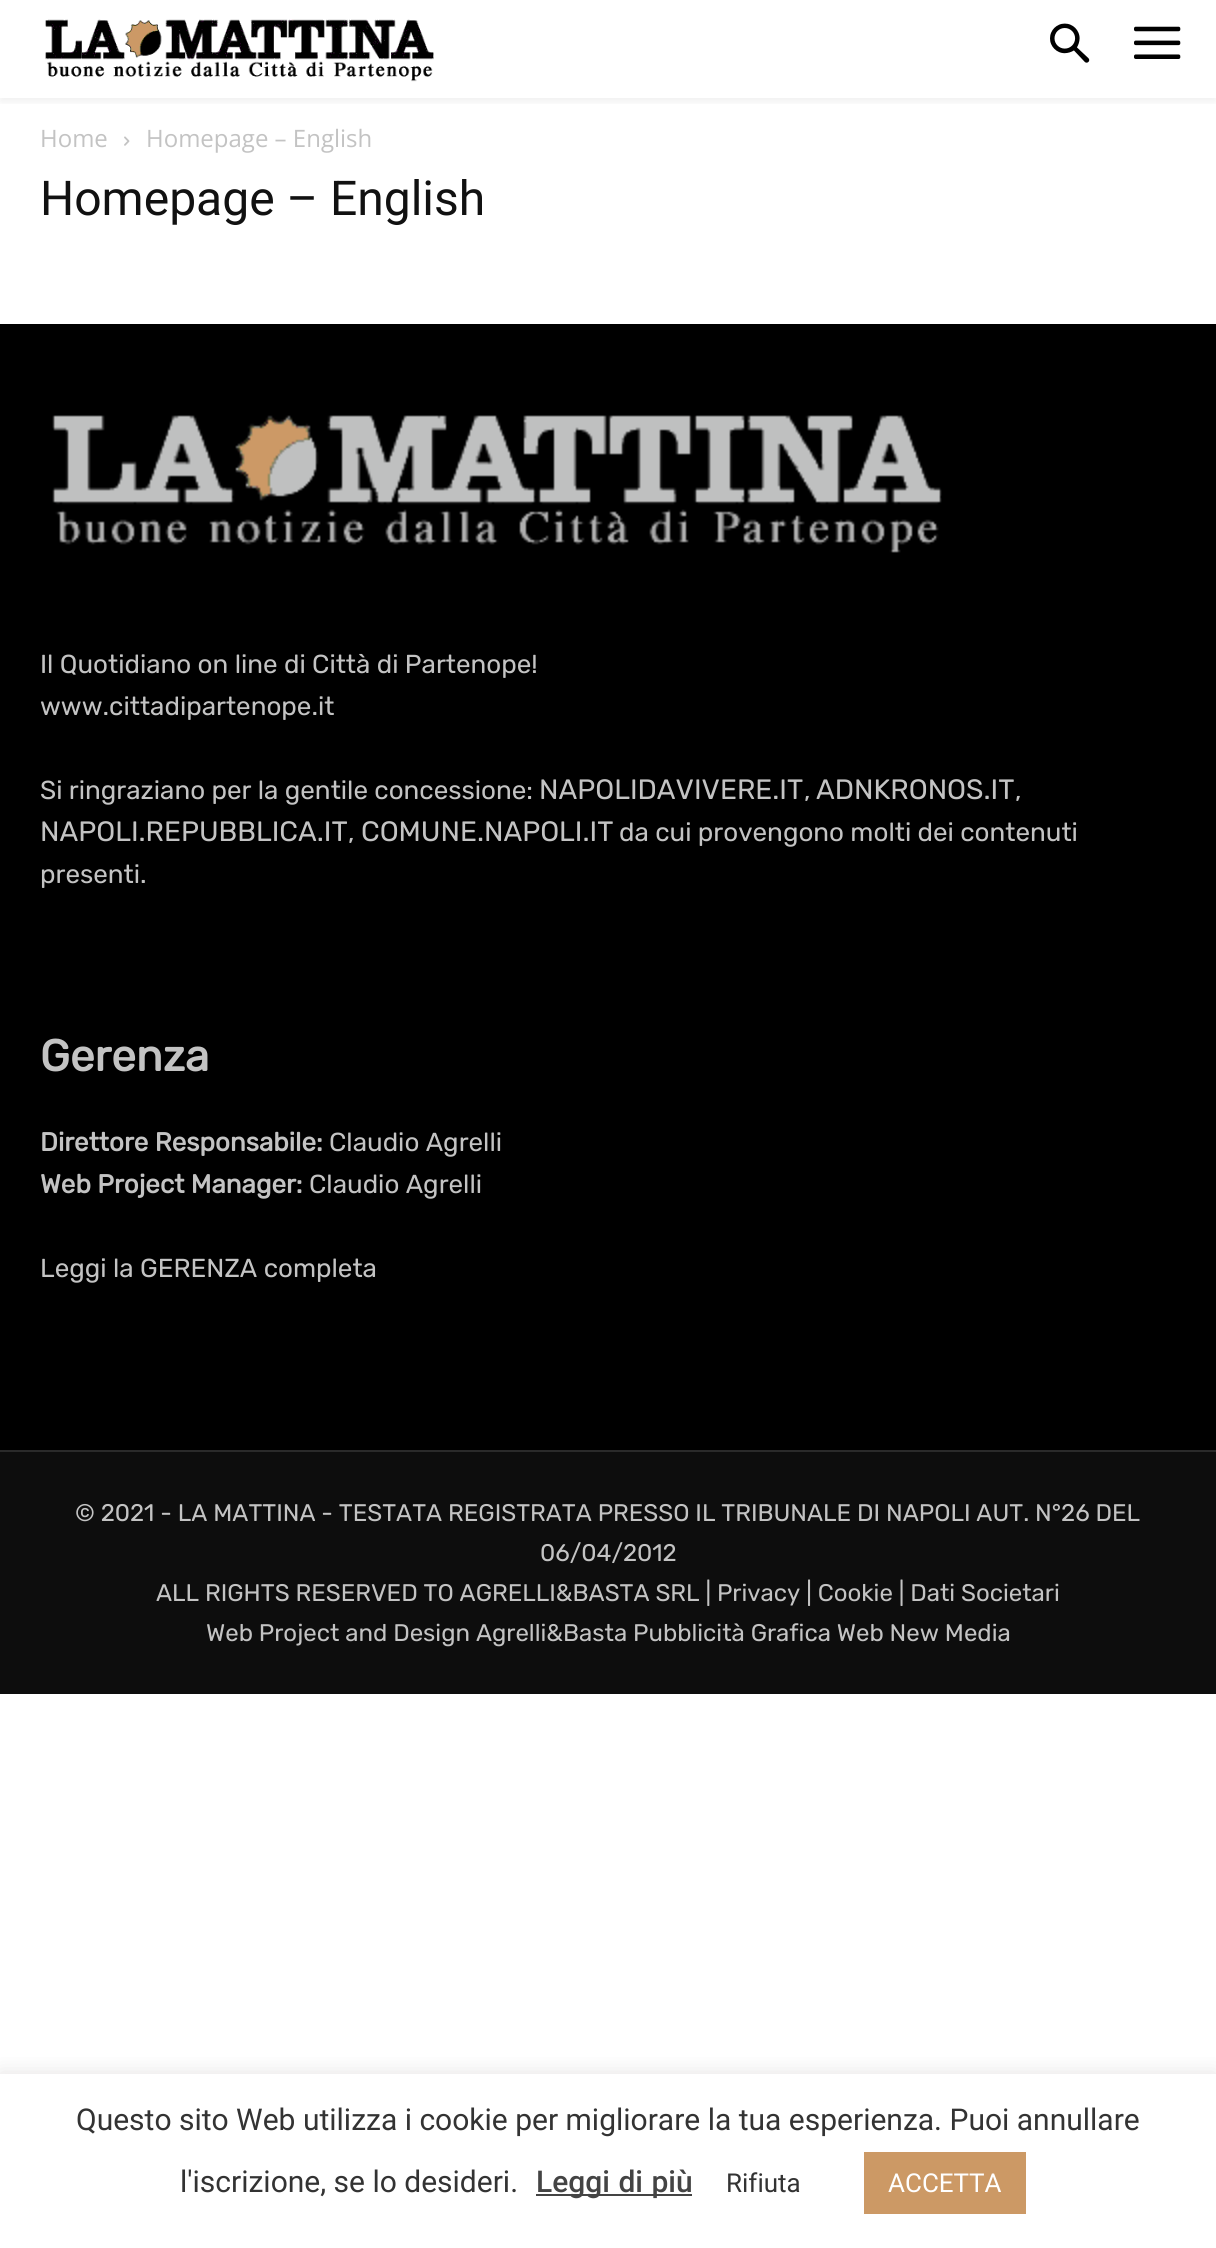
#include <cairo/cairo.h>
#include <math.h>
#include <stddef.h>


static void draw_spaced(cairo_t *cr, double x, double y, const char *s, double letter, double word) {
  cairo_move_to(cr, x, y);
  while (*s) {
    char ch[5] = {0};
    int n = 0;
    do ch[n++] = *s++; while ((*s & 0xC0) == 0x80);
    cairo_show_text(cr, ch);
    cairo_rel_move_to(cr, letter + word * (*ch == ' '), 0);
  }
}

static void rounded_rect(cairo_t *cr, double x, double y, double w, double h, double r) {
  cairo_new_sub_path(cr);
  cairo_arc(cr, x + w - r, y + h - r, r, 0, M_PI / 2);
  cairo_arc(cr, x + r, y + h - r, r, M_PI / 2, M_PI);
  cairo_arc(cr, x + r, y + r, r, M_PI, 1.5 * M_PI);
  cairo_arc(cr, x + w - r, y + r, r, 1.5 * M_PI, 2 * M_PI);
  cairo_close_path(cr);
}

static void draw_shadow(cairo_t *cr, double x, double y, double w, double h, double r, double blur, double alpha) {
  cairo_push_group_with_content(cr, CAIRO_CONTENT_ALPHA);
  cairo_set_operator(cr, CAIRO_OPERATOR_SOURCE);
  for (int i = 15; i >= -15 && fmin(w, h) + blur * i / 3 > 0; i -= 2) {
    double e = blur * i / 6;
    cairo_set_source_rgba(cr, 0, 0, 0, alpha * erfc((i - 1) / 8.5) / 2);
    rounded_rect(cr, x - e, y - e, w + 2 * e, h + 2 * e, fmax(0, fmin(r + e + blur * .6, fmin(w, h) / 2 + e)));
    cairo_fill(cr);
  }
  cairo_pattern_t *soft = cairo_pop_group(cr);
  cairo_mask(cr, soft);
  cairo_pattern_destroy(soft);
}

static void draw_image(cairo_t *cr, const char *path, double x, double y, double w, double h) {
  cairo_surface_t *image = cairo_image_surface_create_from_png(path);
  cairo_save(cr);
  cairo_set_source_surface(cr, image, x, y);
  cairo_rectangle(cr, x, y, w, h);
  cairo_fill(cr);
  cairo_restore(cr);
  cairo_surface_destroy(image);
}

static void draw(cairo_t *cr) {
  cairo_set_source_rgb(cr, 1, 1, 1);
  cairo_paint(cr);
  draw_image(cr, "images/1.png", 45, 19, 389, 63);
  draw_image(cr, "images/2.png", 1050, 23, 40, 40);
  draw_image(cr, "images/3.png", 1134, 26, 47, 33);
  cairo_save(cr);
  cairo_rectangle(cr, 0, 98, 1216, 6);
  cairo_clip(cr);
  cairo_set_source_rgb(cr, 0, 0, 0);
  draw_shadow(cr, 0, 4, 1216, 98, 0, 4, 0.06);
  cairo_restore(cr);
  draw_image(cr, "images/4.png", 124, 136, 6, 10);
  cairo_set_source_rgb(cr, 0, 0, 0);
  cairo_rectangle(cr, 0, 324, 1216, 1126);
  cairo_fill(cr);
  draw_image(cr, "images/5.png", 52, 415, 890, 138);
  cairo_set_source_rgb(cr, 13 / 255.0, 13 / 255.0, 13 / 255.0);
  cairo_rectangle(cr, 0, 1452, 1216, 242);
  cairo_fill(cr);
  cairo_set_source_rgb(cr, 42 / 255.0, 42 / 255.0, 42 / 255.0);
  cairo_rectangle(cr, 0, 1450, 1216, 2);
  cairo_fill(cr);
  cairo_save(cr);
  cairo_rectangle(cr, 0, 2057, 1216, 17);
  cairo_clip(cr);
  cairo_set_source_rgb(cr, 172 / 255.0, 171 / 255.0, 171 / 255.0);
  draw_shadow(cr, 0, 2072, 1216, 174, 0, 10, 0.3);
  cairo_restore(cr);
  cairo_set_source_rgb(cr, 68 / 255.0, 68 / 255.0, 68 / 255.0);
  cairo_rectangle(cr, 536, 2194, 156, 2);
  cairo_fill(cr);
  cairo_set_source_rgb(cr, 204 / 255.0, 153 / 255.0, 101 / 255.0);
  cairo_rectangle(cr, 864, 2152, 162, 62);
  cairo_fill(cr);
  cairo_select_font_face(cr, "Open Sans", CAIRO_FONT_SLANT_NORMAL, CAIRO_FONT_WEIGHT_NORMAL);
  cairo_set_font_size(cr, 24);
  cairo_set_source_rgb(cr, 195 / 255.0, 195 / 255.0, 195 / 255.0);
  cairo_move_to(cr, 40, 147);
  cairo_show_text(cr, "Home");
  cairo_move_to(cr, 146, 147);
  cairo_show_text(cr, "Homepage – English");
  cairo_select_font_face(cr, "Roboto", CAIRO_FONT_SLANT_NORMAL, CAIRO_FONT_WEIGHT_NORMAL);
  cairo_set_font_size(cr, 48);
  cairo_set_source_rgb(cr, 17 / 255.0, 17 / 255.0, 17 / 255.0);
  cairo_move_to(cr, 40, 215);
  cairo_show_text(cr, "Homepage – English");
  cairo_select_font_face(cr, "Rubik Light", CAIRO_FONT_SLANT_NORMAL, CAIRO_FONT_WEIGHT_NORMAL);
  cairo_set_font_size(cr, 26);
  cairo_set_source_rgb(cr, 195 / 255.0, 195 / 255.0, 195 / 255.0);
  cairo_move_to(cr, 40, 673);
  cairo_show_text(cr, "Il Quotidiano on line di Città di Partenope!");
  cairo_move_to(cr, 40, 715);
  cairo_show_text(cr, "www.cittadipartenope.it");
  cairo_move_to(cr, 40, 799);
  cairo_show_text(cr, "Si ringraziano per la gentile concessione:");
  cairo_set_font_size(cr, 28);
  cairo_move_to(cr, 539, 799);
  cairo_show_text(cr, "NAPOLIDAVIVERE.IT");
  cairo_set_font_size(cr, 26);
  cairo_move_to(cr, 804, 799);
  cairo_show_text(cr, ",");
  cairo_set_font_size(cr, 28);
  cairo_move_to(cr, 816, 799);
  cairo_show_text(cr, "ADNKRONOS.IT");
  cairo_set_font_size(cr, 26);
  cairo_move_to(cr, 1015, 799);
  cairo_show_text(cr, ",");
  cairo_set_font_size(cr, 28);
  cairo_move_to(cr, 40, 841);
  cairo_show_text(cr, "NAPOLI.REPUBBLICA.IT");
  cairo_set_font_size(cr, 26);
  cairo_move_to(cr, 348, 841);
  cairo_show_text(cr, ",");
  cairo_set_font_size(cr, 28);
  cairo_move_to(cr, 361, 841);
  cairo_show_text(cr, "COMUNE.NAPOLI.IT");
  cairo_set_font_size(cr, 26);
  cairo_move_to(cr, 619, 841);
  cairo_show_text(cr, "da cui provengono molti dei contenuti");
  cairo_move_to(cr, 40, 883);
  cairo_show_text(cr, "presenti.");
  cairo_select_font_face(cr, "Rubik", CAIRO_FONT_SLANT_NORMAL, CAIRO_FONT_WEIGHT_BOLD);
  cairo_set_font_size(cr, 44);
  cairo_move_to(cr, 40, 1071);
  cairo_show_text(cr, "Gerenza");
  cairo_set_font_size(cr, 26);
  cairo_move_to(cr, 40, 1151);
  cairo_show_text(cr, "Direttore Responsabile:");
  cairo_select_font_face(cr, "Rubik Light", CAIRO_FONT_SLANT_NORMAL, CAIRO_FONT_WEIGHT_NORMAL);
  cairo_move_to(cr, 329, 1151);
  cairo_show_text(cr, "Claudio Agrelli");
  cairo_select_font_face(cr, "Rubik", CAIRO_FONT_SLANT_NORMAL, CAIRO_FONT_WEIGHT_BOLD);
  cairo_move_to(cr, 40, 1193);
  cairo_show_text(cr, "Web Project Manager:");
  cairo_select_font_face(cr, "Rubik Light", CAIRO_FONT_SLANT_NORMAL, CAIRO_FONT_WEIGHT_NORMAL);
  cairo_move_to(cr, 309, 1193);
  cairo_show_text(cr, "Claudio Agrelli");
  cairo_move_to(cr, 40, 1277);
  cairo_show_text(cr, "Leggi la GERENZA completa");
  cairo_set_font_size(cr, 24);
  cairo_move_to(cr, 75, 1521);
  cairo_show_text(cr, "© 2021 - LA MATTINA - TESTATA REGISTRATA PRESSO IL TRIBUNALE DI NAPOLI AUT. N°26 DEL");
  cairo_move_to(cr, 540, 1561);
  cairo_show_text(cr, "06/04/2012");
  cairo_move_to(cr, 156, 1601);
  cairo_show_text(cr, "ALL RIGHTS RESERVED TO AGRELLI&BASTA SRL | Privacy | Cookie | Dati Societari");
  cairo_move_to(cr, 206, 1641);
  cairo_show_text(cr, "Web Project and Design Agrelli&Basta Pubblicità Grafica Web New Media");
  cairo_select_font_face(cr, "Roboto", CAIRO_FONT_SLANT_NORMAL, CAIRO_FONT_WEIGHT_NORMAL);
  cairo_set_font_size(cr, 30);
  cairo_set_source_rgb(cr, 51 / 255.0, 51 / 255.0, 51 / 255.0);
  cairo_move_to(cr, 76, 2130);
  cairo_show_text(cr, "Questo sito Web utilizza i cookie per migliorare la tua esperienza. Puoi annullare");
  cairo_move_to(cr, 180, 2192);
  cairo_show_text(cr, "l'iscrizione, se lo desideri.");
  cairo_select_font_face(cr, "Roboto Medium", CAIRO_FONT_SLANT_NORMAL, CAIRO_FONT_WEIGHT_NORMAL);
  cairo_set_source_rgb(cr, 68 / 255.0, 68 / 255.0, 68 / 255.0);
  draw_spaced(cr, 536, 2192, "Leggi di più", 0, 1);
  cairo_select_font_face(cr, "Roboto", CAIRO_FONT_SLANT_NORMAL, CAIRO_FONT_WEIGHT_NORMAL);
  cairo_set_font_size(cr, 26);
  cairo_set_source_rgb(cr, 51 / 255.0, 51 / 255.0, 51 / 255.0);
  cairo_move_to(cr, 726, 2192);
  cairo_show_text(cr, "Rifiuta");
  cairo_set_source_rgb(cr, 1, 1, 1);
  cairo_move_to(cr, 888, 2192);
  cairo_show_text(cr, "ACCETTA");
}

int main(void) {
  cairo_surface_t *surface = cairo_image_surface_create(CAIRO_FORMAT_RGB24, 1216, 2248);
  cairo_t *cr = cairo_create(surface);
  cairo_font_options_t *options = cairo_font_options_create();
  cairo_font_options_set_hint_metrics(options, CAIRO_HINT_METRICS_OFF);
  cairo_font_options_set_hint_style(options, CAIRO_HINT_STYLE_NONE);
  cairo_set_font_options(cr, options);
  cairo_set_miter_limit(cr, 4);
  draw(cr);
  cairo_surface_write_to_png(surface, "out.png");
  cairo_font_options_destroy(options);
  cairo_destroy(cr);
  cairo_surface_destroy(surface);
  return 0;
}
